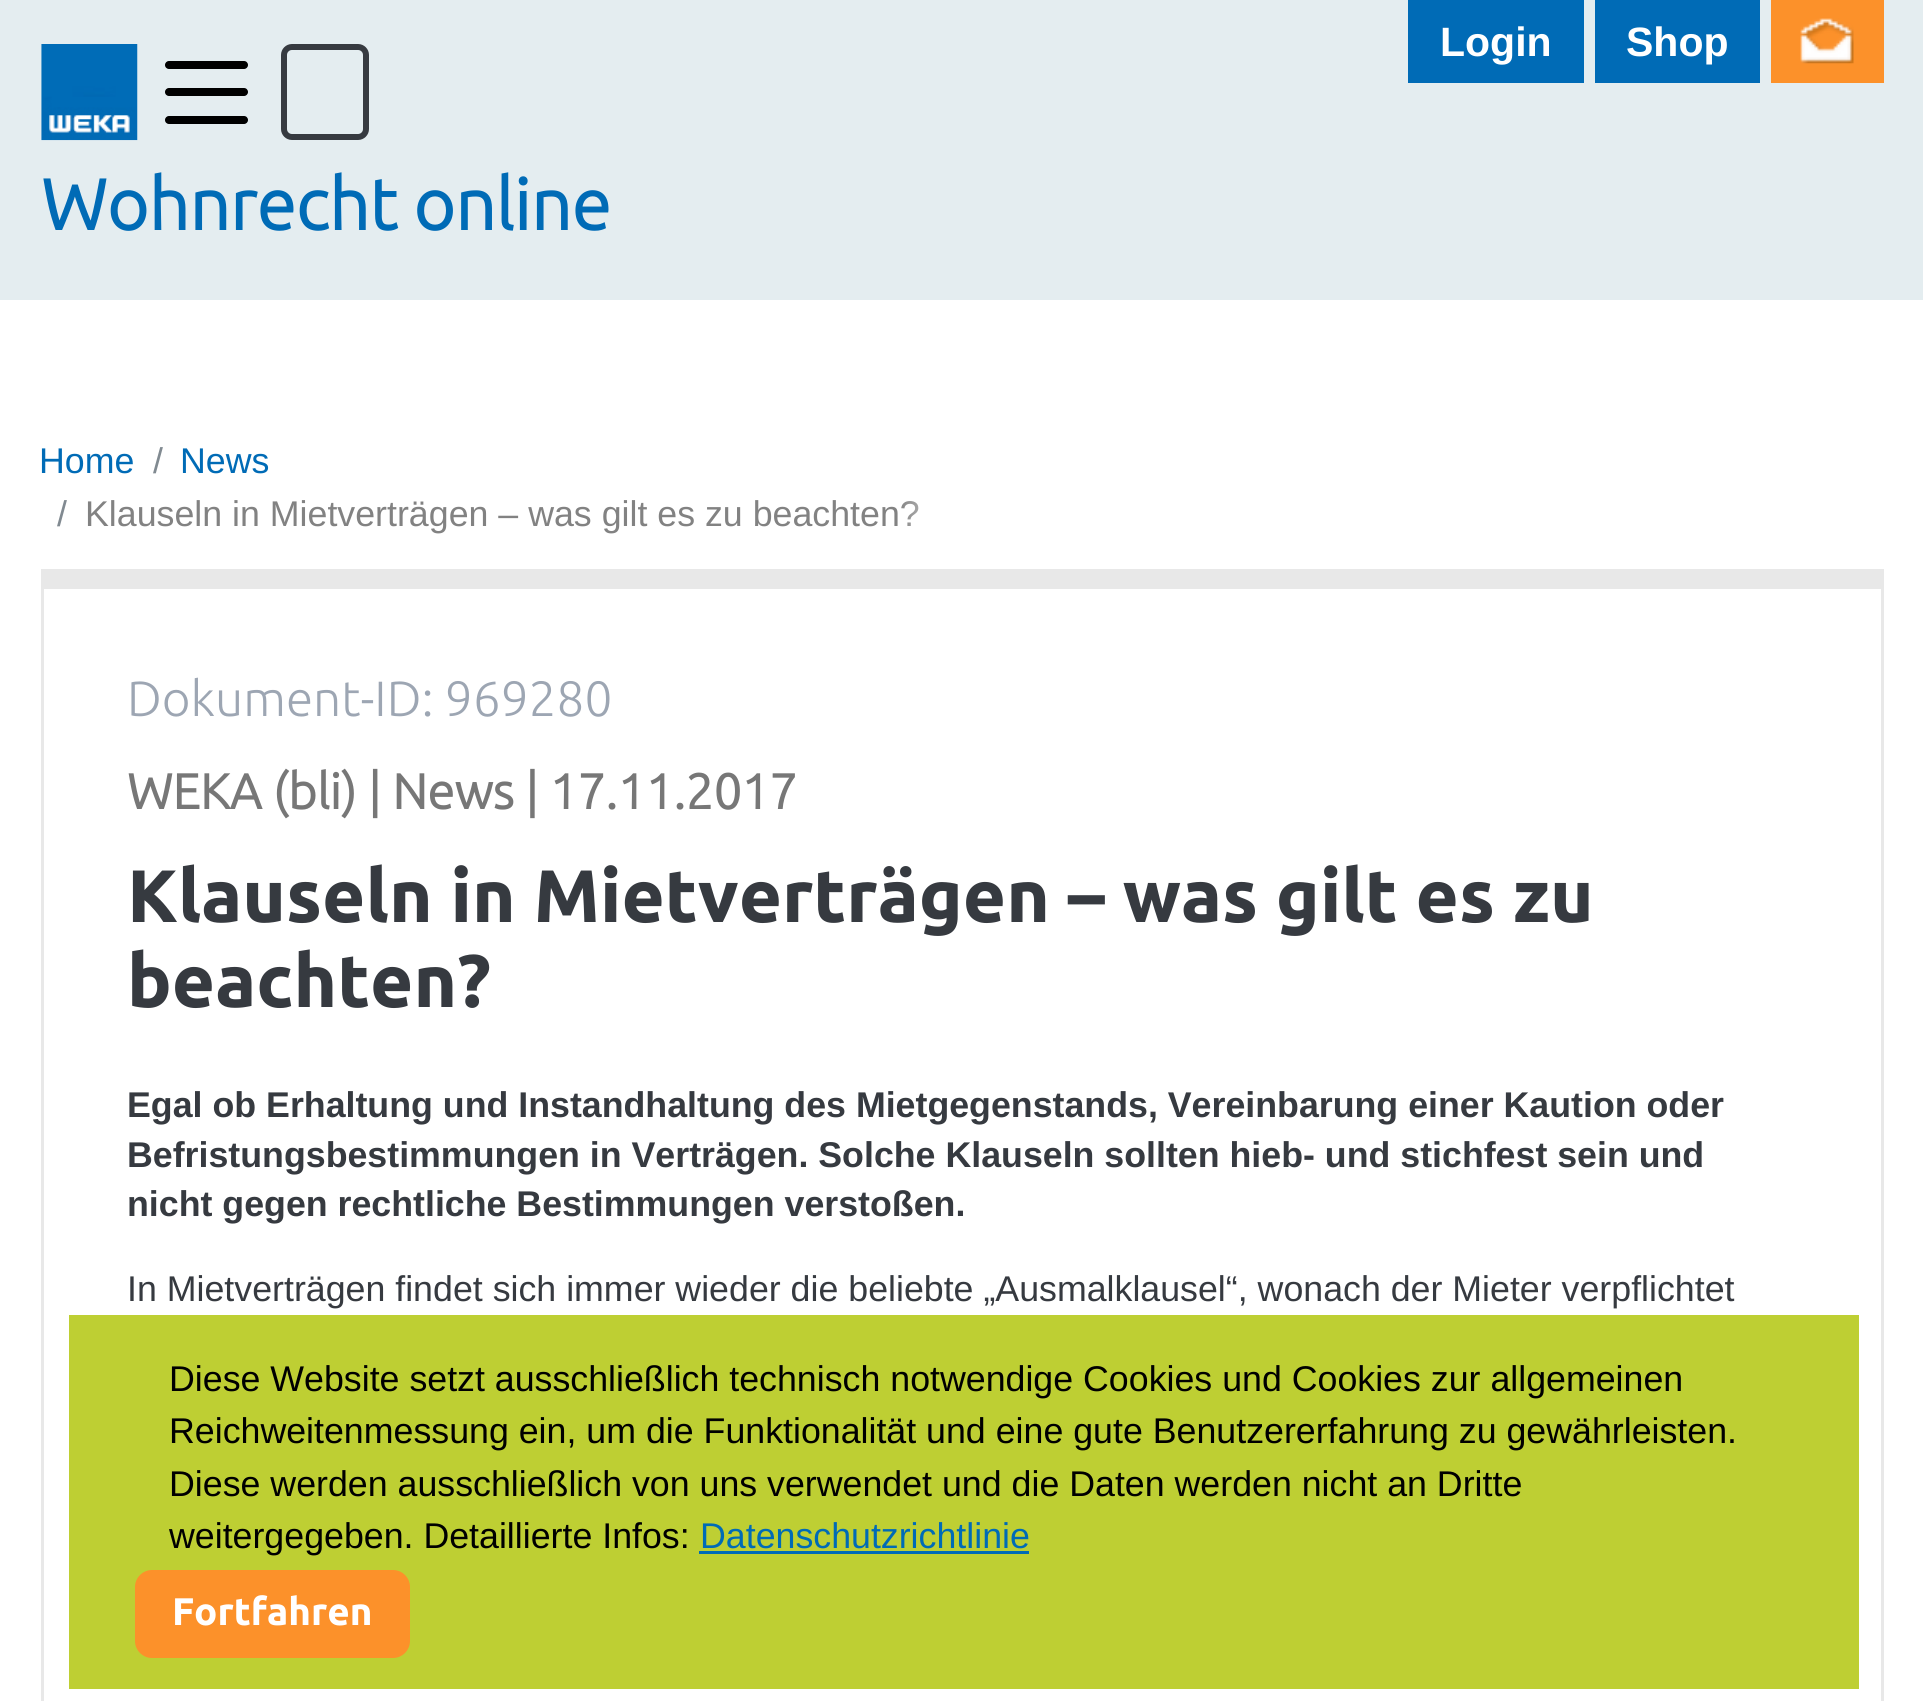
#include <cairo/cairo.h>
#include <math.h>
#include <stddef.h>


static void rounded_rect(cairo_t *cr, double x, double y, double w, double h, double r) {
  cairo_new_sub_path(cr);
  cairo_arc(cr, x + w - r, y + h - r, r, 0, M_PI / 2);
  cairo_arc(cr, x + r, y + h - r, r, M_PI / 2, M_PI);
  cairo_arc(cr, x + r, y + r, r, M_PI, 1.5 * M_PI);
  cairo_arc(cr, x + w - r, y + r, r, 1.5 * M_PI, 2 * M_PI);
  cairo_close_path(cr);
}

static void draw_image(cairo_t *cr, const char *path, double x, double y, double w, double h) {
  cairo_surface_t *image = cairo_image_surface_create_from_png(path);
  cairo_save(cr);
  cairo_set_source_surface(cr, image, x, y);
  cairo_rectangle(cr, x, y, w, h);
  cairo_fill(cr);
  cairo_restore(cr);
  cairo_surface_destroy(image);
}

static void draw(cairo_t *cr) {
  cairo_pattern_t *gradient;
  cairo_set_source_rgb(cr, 1, 1, 1);
  cairo_paint(cr);
  cairo_set_source_rgb(cr, 228 / 255.0, 237 / 255.0, 240 / 255.0);
  cairo_rectangle(cr, 0, 0, 1923, 300);
  cairo_fill(cr);
  cairo_set_source_rgb(cr, 0, 107 / 255.0, 182 / 255.0);
  cairo_rectangle(cr, 1408, 0, 176, 83);
  cairo_fill(cr);
  cairo_rectangle(cr, 1595, 0, 165, 83);
  cairo_fill(cr);
  cairo_set_source_rgb(cr, 252 / 255.0, 145 / 255.0, 42 / 255.0);
  cairo_rectangle(cr, 1771, 0, 113, 83);
  cairo_fill(cr);
  draw_image(cr, "images/1.png", 1800, 18, 54, 46);
  draw_image(cr, "images/2.png", 41, 44, 97, 97);
  cairo_set_source_rgb(cr, 0, 0, 0);
  rounded_rect(cr, 165, 88, 83, 8, 4);
  cairo_fill(cr);
  rounded_rect(cr, 165, 61, 83, 8, 4);
  cairo_fill(cr);
  rounded_rect(cr, 165, 116, 83, 8, 4);
  cairo_fill(cr);
  rounded_rect(cr, 284, 47, 82, 90, 8);
  cairo_set_source_rgb(cr, 54 / 255.0, 58 / 255.0, 64 / 255.0);
  cairo_set_line_width(cr, 6);
  cairo_stroke(cr);
  cairo_set_source_rgb(cr, 232 / 255.0, 232 / 255.0, 232 / 255.0);
  cairo_rectangle(cr, 41, 569, 1843, 17);
  cairo_fill(cr);
  cairo_rectangle(cr, 42.5, 587.5, 1840, 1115);
  cairo_set_line_width(cr, 3);
  cairo_stroke(cr);
  cairo_set_source_rgb(cr, 190 / 255.0, 207 / 255.0, 51 / 255.0);
  cairo_rectangle(cr, 69, 1315, 1790, 374);
  cairo_fill(cr);
  cairo_set_source_rgb(cr, 0, 107 / 255.0, 182 / 255.0);
  cairo_rectangle(cr, 699, 1551, 330, 3);
  cairo_fill(cr);
  cairo_set_source_rgb(cr, 252 / 255.0, 145 / 255.0, 42 / 255.0);
  rounded_rect(cr, 136.5, 1571.5, 272, 85, 15.5);
  cairo_fill_preserve(cr);
  cairo_stroke(cr);
  cairo_select_font_face(cr, "Liberation Sans", CAIRO_FONT_SLANT_NORMAL, CAIRO_FONT_WEIGHT_BOLD);
  cairo_set_font_size(cr, 41);
  cairo_set_source_rgb(cr, 1, 1, 1);
  cairo_move_to(cr, 1440, 56);
  cairo_show_text(cr, "Login");
  cairo_move_to(cr, 1626, 56);
  cairo_show_text(cr, "Shop");
  cairo_select_font_face(cr, "Ubuntu", CAIRO_FONT_SLANT_NORMAL, CAIRO_FONT_WEIGHT_BOLD);
  cairo_set_font_size(cr, 71.5);
  cairo_set_source_rgb(cr, 0, 107 / 255.0, 182 / 255.0);
  cairo_move_to(cr, 41, 230);
  cairo_show_text(cr, "Wohnrecht online");
  cairo_select_font_face(cr, "Liberation Sans", CAIRO_FONT_SLANT_NORMAL, CAIRO_FONT_WEIGHT_NORMAL);
  cairo_set_font_size(cr, 35.75);
  cairo_move_to(cr, 39, 473);
  cairo_show_text(cr, "Home");
  cairo_set_source_rgb(cr, 129 / 255.0, 138 / 255.0, 145 / 255.0);
  cairo_move_to(cr, 153, 473);
  cairo_show_text(cr, "/");
  cairo_set_source_rgb(cr, 0, 107 / 255.0, 182 / 255.0);
  cairo_move_to(cr, 180, 473);
  cairo_show_text(cr, "News");
  cairo_set_source_rgb(cr, 129 / 255.0, 138 / 255.0, 145 / 255.0);
  cairo_move_to(cr, 57, 526);
  cairo_show_text(cr, "/");
  cairo_set_source_rgb(cr, 130 / 255.0, 130 / 255.0, 130 / 255.0);
  cairo_move_to(cr, 85, 526);
  cairo_show_text(cr, "Klauseln in Mietverträgen – was gilt es zu beachten?");
  gradient = cairo_pattern_create_linear(861, 516, 968, 516);
  cairo_pattern_add_color_stop_rgba(gradient, 0.35, 1, 1, 1, 0);
  cairo_pattern_add_color_stop_rgba(gradient, 1, 1, 1, 1, 1);
  cairo_set_source(cr, gradient);
  cairo_pattern_destroy(gradient);
  cairo_rectangle(cr, 901, 501, 18, 25);
  cairo_fill(cr);
  cairo_select_font_face(cr, "Ubuntu Light", CAIRO_FONT_SLANT_NORMAL, CAIRO_FONT_WEIGHT_NORMAL);
  cairo_set_font_size(cr, 49.5);
  cairo_set_source_rgb(cr, 157 / 255.0, 166 / 255.0, 179 / 255.0);
  cairo_move_to(cr, 127, 716);
  cairo_show_text(cr, "Dokument-ID: 969280");
  cairo_select_font_face(cr, "Ubuntu", CAIRO_FONT_SLANT_NORMAL, CAIRO_FONT_WEIGHT_BOLD);
  cairo_set_source_rgb(cr, 119 / 255.0, 119 / 255.0, 119 / 255.0);
  cairo_move_to(cr, 127, 809);
  cairo_show_text(cr, "WEKA (bli) | News | 17.11.2017");
  cairo_select_font_face(cr, "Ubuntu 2", CAIRO_FONT_SLANT_NORMAL, CAIRO_FONT_WEIGHT_BOLD);
  cairo_set_font_size(cr, 74.25);
  cairo_set_source_rgb(cr, 54 / 255.0, 58 / 255.0, 64 / 255.0);
  cairo_move_to(cr, 127, 922);
  cairo_show_text(cr, "Klauseln in Mietverträgen – was gilt es zu");
  cairo_move_to(cr, 127, 1007);
  cairo_show_text(cr, "beachten?");
  cairo_select_font_face(cr, "Liberation Sans", CAIRO_FONT_SLANT_NORMAL, CAIRO_FONT_WEIGHT_BOLD);
  cairo_set_font_size(cr, 35.75);
  cairo_move_to(cr, 127, 1117);
  cairo_show_text(cr, "Egal ob Erhaltung und Instandhaltung des Mietgegenstands, Vereinbarung einer Kaution oder");
  cairo_move_to(cr, 127, 1167);
  cairo_show_text(cr, "Befristungsbestimmungen in Verträgen. Solche Klauseln sollten hieb- und stichfest sein und");
  cairo_move_to(cr, 127, 1216);
  cairo_show_text(cr, "nicht gegen rechtliche Bestimmungen verstoßen.");
  cairo_select_font_face(cr, "Liberation Sans", CAIRO_FONT_SLANT_NORMAL, CAIRO_FONT_WEIGHT_NORMAL);
  cairo_move_to(cr, 127, 1301);
  cairo_show_text(cr, "In Mietverträgen findet sich immer wieder die beliebte „Ausmalklausel“, wonach der Mieter verpflichtet");
  cairo_set_source_rgb(cr, 0, 0, 0);
  cairo_move_to(cr, 169, 1391);
  cairo_show_text(cr, "Diese Website setzt ausschließlich technisch notwendige Cookies und Cookies zur allgemeinen");
  cairo_move_to(cr, 169, 1443);
  cairo_show_text(cr, "Reichweitenmessung ein, um die Funktionalität und eine gute Benutzererfahrung zu gewährleisten.");
  cairo_move_to(cr, 169, 1496);
  cairo_show_text(cr, "Diese werden ausschließlich von uns verwendet und die Daten werden nicht an Dritte");
  cairo_move_to(cr, 169, 1548);
  cairo_show_text(cr, "weitergegeben. Detaillierte Infos:");
  cairo_set_source_rgb(cr, 0, 107 / 255.0, 182 / 255.0);
  cairo_move_to(cr, 700, 1548);
  cairo_show_text(cr, "Datenschutzrichtlinie");
  cairo_select_font_face(cr, "Ubuntu 2", CAIRO_FONT_SLANT_NORMAL, CAIRO_FONT_WEIGHT_BOLD);
  cairo_set_font_size(cr, 38.5);
  cairo_set_source_rgb(cr, 1, 1, 1);
  cairo_move_to(cr, 172, 1625);
  cairo_show_text(cr, "Fortfahren");
}

int main(void) {
  cairo_surface_t *surface = cairo_image_surface_create(CAIRO_FORMAT_RGB24, 1923, 1701);
  cairo_t *cr = cairo_create(surface);
  cairo_font_options_t *options = cairo_font_options_create();
  cairo_font_options_set_hint_metrics(options, CAIRO_HINT_METRICS_OFF);
  cairo_font_options_set_hint_style(options, CAIRO_HINT_STYLE_NONE);
  cairo_set_font_options(cr, options);
  cairo_set_miter_limit(cr, 4);
  draw(cr);
  cairo_surface_write_to_png(surface, "out.png");
  cairo_font_options_destroy(options);
  cairo_destroy(cr);
  cairo_surface_destroy(surface);
  return 0;
}
